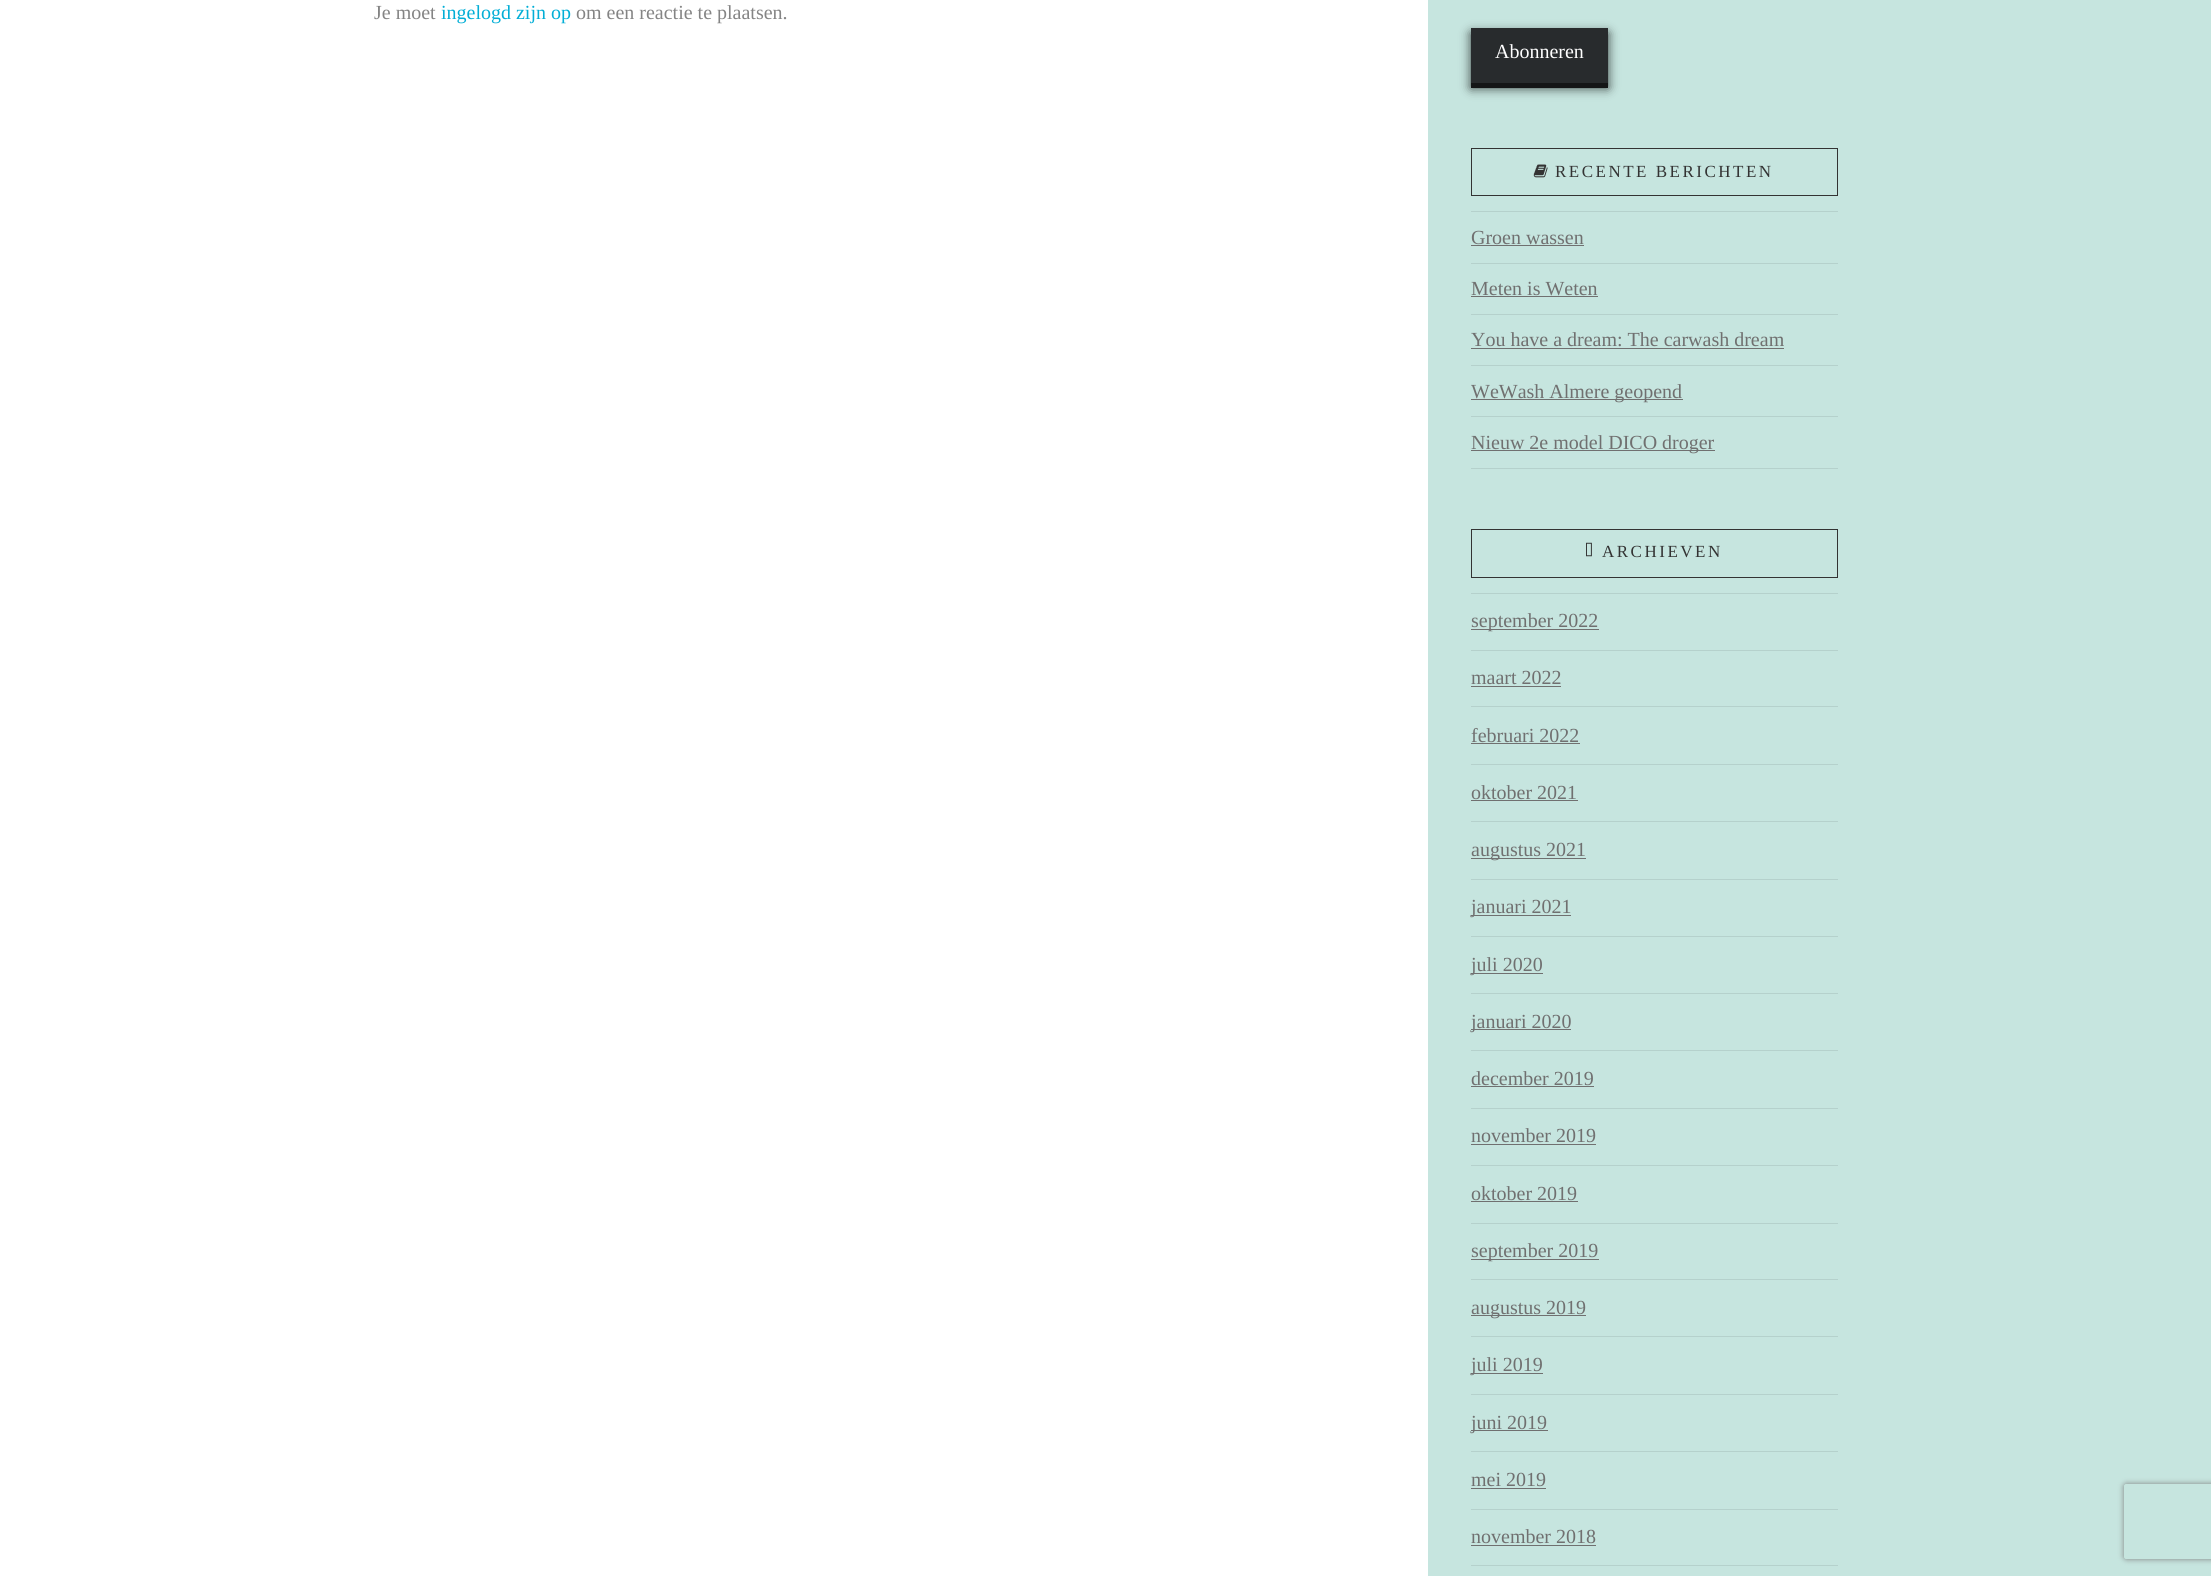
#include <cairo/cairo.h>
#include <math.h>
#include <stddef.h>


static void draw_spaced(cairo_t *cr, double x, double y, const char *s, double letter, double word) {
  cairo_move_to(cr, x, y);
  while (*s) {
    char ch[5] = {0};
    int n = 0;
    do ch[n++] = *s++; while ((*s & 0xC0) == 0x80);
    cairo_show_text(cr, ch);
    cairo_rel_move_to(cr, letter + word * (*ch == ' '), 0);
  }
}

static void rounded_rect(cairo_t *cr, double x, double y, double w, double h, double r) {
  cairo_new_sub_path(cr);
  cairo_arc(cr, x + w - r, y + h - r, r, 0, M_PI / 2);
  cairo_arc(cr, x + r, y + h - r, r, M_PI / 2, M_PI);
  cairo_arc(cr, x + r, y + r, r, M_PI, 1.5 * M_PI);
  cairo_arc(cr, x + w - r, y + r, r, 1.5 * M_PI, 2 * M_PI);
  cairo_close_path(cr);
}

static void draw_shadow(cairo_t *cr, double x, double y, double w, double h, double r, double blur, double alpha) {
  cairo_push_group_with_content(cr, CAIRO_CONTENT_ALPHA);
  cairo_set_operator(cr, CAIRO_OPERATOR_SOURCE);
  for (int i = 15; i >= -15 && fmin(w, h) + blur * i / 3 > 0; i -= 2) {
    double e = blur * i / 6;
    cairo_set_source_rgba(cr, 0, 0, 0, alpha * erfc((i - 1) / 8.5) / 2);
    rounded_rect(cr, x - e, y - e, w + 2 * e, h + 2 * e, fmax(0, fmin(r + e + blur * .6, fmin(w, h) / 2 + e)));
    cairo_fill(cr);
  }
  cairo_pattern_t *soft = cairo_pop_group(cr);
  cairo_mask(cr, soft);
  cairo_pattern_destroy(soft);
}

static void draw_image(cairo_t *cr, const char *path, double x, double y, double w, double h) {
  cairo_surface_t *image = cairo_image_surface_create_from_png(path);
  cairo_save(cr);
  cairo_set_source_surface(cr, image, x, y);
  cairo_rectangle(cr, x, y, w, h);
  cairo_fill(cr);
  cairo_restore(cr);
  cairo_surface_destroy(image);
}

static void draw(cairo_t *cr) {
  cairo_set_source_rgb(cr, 198 / 255.0, 229 / 255.0, 223 / 255.0);
  cairo_paint(cr);
  cairo_set_source_rgb(cr, 1, 1, 1);
  cairo_rectangle(cr, 0, 0, 1428, 1576);
  cairo_fill(cr);
  cairo_set_source_rgb(cr, 0, 0, 0);
  draw_shadow(cr, 1471, 33, 137, 55, 0, 5.5, 0.75);
  cairo_set_source_rgb(cr, 20 / 255.0, 21 / 255.0, 22 / 255.0);
  cairo_new_path(cr);
  cairo_move_to(cr, 1471, 33);
  cairo_line_to(cr, 1471, 88);
  cairo_line_to(cr, 1608, 88);
  cairo_line_to(cr, 1608, 33);
  cairo_line_to(cr, 1608, 82);
  cairo_line_to(cr, 1471, 82);
  cairo_close_path(cr);
  cairo_fill(cr);
  cairo_set_source_rgb(cr, 40 / 255.0, 43 / 255.0, 45 / 255.0);
  cairo_rectangle(cr, 1471, 28, 137, 55);
  cairo_fill(cr);
  cairo_rectangle(cr, 1471.5, 148.5, 366, 47);
  cairo_set_source_rgb(cr, 51 / 255.0, 51 / 255.0, 51 / 255.0);
  cairo_set_line_width(cr, 1);
  cairo_stroke(cr);
  draw_image(cr, "images/1.png", 1533, 164, 15, 14);
  cairo_set_source_rgb(cr, 181 / 255.0, 209 / 255.0, 204 / 255.0);
  cairo_rectangle(cr, 1471, 211, 367, 1);
  cairo_fill(cr);
  cairo_set_source_rgb(cr, 112 / 255.0, 112 / 255.0, 112 / 255.0);
  cairo_rectangle(cr, 1471, 245, 113, 1);
  cairo_fill(cr);
  cairo_set_source_rgb(cr, 181 / 255.0, 209 / 255.0, 204 / 255.0);
  cairo_rectangle(cr, 1471, 263, 367, 1);
  cairo_fill(cr);
  cairo_set_source_rgb(cr, 112 / 255.0, 112 / 255.0, 112 / 255.0);
  cairo_rectangle(cr, 1471, 296, 127, 1);
  cairo_fill(cr);
  cairo_set_source_rgb(cr, 181 / 255.0, 209 / 255.0, 204 / 255.0);
  cairo_rectangle(cr, 1471, 314, 367, 1);
  cairo_fill(cr);
  cairo_set_source_rgb(cr, 112 / 255.0, 112 / 255.0, 112 / 255.0);
  cairo_rectangle(cr, 1471, 348, 313, 1);
  cairo_fill(cr);
  cairo_set_source_rgb(cr, 181 / 255.0, 209 / 255.0, 204 / 255.0);
  cairo_rectangle(cr, 1471, 365, 367, 1);
  cairo_fill(cr);
  cairo_set_source_rgb(cr, 112 / 255.0, 112 / 255.0, 112 / 255.0);
  cairo_rectangle(cr, 1471, 399, 212, 1);
  cairo_fill(cr);
  cairo_set_source_rgb(cr, 181 / 255.0, 209 / 255.0, 204 / 255.0);
  cairo_rectangle(cr, 1471, 416, 367, 1);
  cairo_fill(cr);
  cairo_rectangle(cr, 1471, 468, 367, 1);
  cairo_fill(cr);
  cairo_set_source_rgb(cr, 112 / 255.0, 112 / 255.0, 112 / 255.0);
  cairo_rectangle(cr, 1471, 450, 244, 1);
  cairo_fill(cr);
  cairo_rectangle(cr, 1471.5, 529.5, 366, 48);
  cairo_set_source_rgb(cr, 51 / 255.0, 51 / 255.0, 51 / 255.0);
  cairo_stroke(cr);
  draw_image(cr, "images/2.png", 1586, 542, 6, 15);
  cairo_set_source_rgb(cr, 181 / 255.0, 209 / 255.0, 204 / 255.0);
  cairo_rectangle(cr, 1471, 593, 367, 1);
  cairo_fill(cr);
  cairo_set_source_rgb(cr, 112 / 255.0, 112 / 255.0, 112 / 255.0);
  cairo_rectangle(cr, 1471, 629, 128, 1);
  cairo_fill(cr);
  cairo_set_source_rgb(cr, 181 / 255.0, 209 / 255.0, 204 / 255.0);
  cairo_rectangle(cr, 1471, 650, 367, 1);
  cairo_fill(cr);
  cairo_set_source_rgb(cr, 112 / 255.0, 112 / 255.0, 112 / 255.0);
  cairo_rectangle(cr, 1471, 686, 90, 1);
  cairo_fill(cr);
  cairo_set_source_rgb(cr, 181 / 255.0, 209 / 255.0, 204 / 255.0);
  cairo_rectangle(cr, 1471, 706, 367, 1);
  cairo_fill(cr);
  cairo_set_source_rgb(cr, 112 / 255.0, 112 / 255.0, 112 / 255.0);
  cairo_rectangle(cr, 1471, 743, 109, 1);
  cairo_fill(cr);
  cairo_set_source_rgb(cr, 181 / 255.0, 209 / 255.0, 204 / 255.0);
  cairo_rectangle(cr, 1471, 764, 367, 1);
  cairo_fill(cr);
  cairo_set_source_rgb(cr, 112 / 255.0, 112 / 255.0, 112 / 255.0);
  cairo_rectangle(cr, 1471, 800, 107, 1);
  cairo_fill(cr);
  cairo_set_source_rgb(cr, 181 / 255.0, 209 / 255.0, 204 / 255.0);
  cairo_rectangle(cr, 1471, 821, 367, 1);
  cairo_fill(cr);
  cairo_set_source_rgb(cr, 112 / 255.0, 112 / 255.0, 112 / 255.0);
  cairo_rectangle(cr, 1471, 858, 115, 1);
  cairo_fill(cr);
  cairo_set_source_rgb(cr, 181 / 255.0, 209 / 255.0, 204 / 255.0);
  cairo_rectangle(cr, 1471, 879, 367, 1);
  cairo_fill(cr);
  cairo_set_source_rgb(cr, 112 / 255.0, 112 / 255.0, 112 / 255.0);
  cairo_rectangle(cr, 1471, 915, 100, 1);
  cairo_fill(cr);
  cairo_set_source_rgb(cr, 181 / 255.0, 209 / 255.0, 204 / 255.0);
  cairo_rectangle(cr, 1471, 936, 367, 1);
  cairo_fill(cr);
  cairo_set_source_rgb(cr, 112 / 255.0, 112 / 255.0, 112 / 255.0);
  cairo_rectangle(cr, 1471, 973, 72, 1);
  cairo_fill(cr);
  cairo_set_source_rgb(cr, 181 / 255.0, 209 / 255.0, 204 / 255.0);
  cairo_rectangle(cr, 1471, 993, 367, 1);
  cairo_fill(cr);
  cairo_set_source_rgb(cr, 112 / 255.0, 112 / 255.0, 112 / 255.0);
  cairo_rectangle(cr, 1471, 1029, 100, 1);
  cairo_fill(cr);
  cairo_set_source_rgb(cr, 181 / 255.0, 209 / 255.0, 204 / 255.0);
  cairo_rectangle(cr, 1471, 1050, 367, 1);
  cairo_fill(cr);
  cairo_set_source_rgb(cr, 112 / 255.0, 112 / 255.0, 112 / 255.0);
  cairo_rectangle(cr, 1471, 1086, 123, 1);
  cairo_fill(cr);
  cairo_set_source_rgb(cr, 181 / 255.0, 209 / 255.0, 204 / 255.0);
  cairo_rectangle(cr, 1471, 1108, 367, 1);
  cairo_fill(cr);
  cairo_set_source_rgb(cr, 112 / 255.0, 112 / 255.0, 112 / 255.0);
  cairo_rectangle(cr, 1471, 1144, 125, 1);
  cairo_fill(cr);
  cairo_set_source_rgb(cr, 181 / 255.0, 209 / 255.0, 204 / 255.0);
  cairo_rectangle(cr, 1471, 1165, 367, 1);
  cairo_fill(cr);
  cairo_set_source_rgb(cr, 112 / 255.0, 112 / 255.0, 112 / 255.0);
  cairo_rectangle(cr, 1471, 1201, 107, 1);
  cairo_fill(cr);
  cairo_set_source_rgb(cr, 181 / 255.0, 209 / 255.0, 204 / 255.0);
  cairo_rectangle(cr, 1471, 1223, 367, 1);
  cairo_fill(cr);
  cairo_set_source_rgb(cr, 112 / 255.0, 112 / 255.0, 112 / 255.0);
  cairo_rectangle(cr, 1471, 1259, 128, 1);
  cairo_fill(cr);
  cairo_set_source_rgb(cr, 181 / 255.0, 209 / 255.0, 204 / 255.0);
  cairo_rectangle(cr, 1471, 1279, 367, 1);
  cairo_fill(cr);
  cairo_set_source_rgb(cr, 112 / 255.0, 112 / 255.0, 112 / 255.0);
  cairo_rectangle(cr, 1471, 1315, 115, 1);
  cairo_fill(cr);
  cairo_set_source_rgb(cr, 181 / 255.0, 209 / 255.0, 204 / 255.0);
  cairo_rectangle(cr, 1471, 1336, 367, 1);
  cairo_fill(cr);
  cairo_set_source_rgb(cr, 112 / 255.0, 112 / 255.0, 112 / 255.0);
  cairo_rectangle(cr, 1471, 1373, 72, 1);
  cairo_fill(cr);
  cairo_set_source_rgb(cr, 181 / 255.0, 209 / 255.0, 204 / 255.0);
  cairo_rectangle(cr, 1471, 1394, 367, 1);
  cairo_fill(cr);
  cairo_set_source_rgb(cr, 112 / 255.0, 112 / 255.0, 112 / 255.0);
  cairo_rectangle(cr, 1471, 1430, 77, 1);
  cairo_fill(cr);
  cairo_set_source_rgb(cr, 181 / 255.0, 209 / 255.0, 204 / 255.0);
  cairo_rectangle(cr, 1471, 1451, 367, 1);
  cairo_fill(cr);
  cairo_set_source_rgb(cr, 112 / 255.0, 112 / 255.0, 112 / 255.0);
  cairo_rectangle(cr, 1471, 1488, 75, 1);
  cairo_fill(cr);
  cairo_set_source_rgb(cr, 181 / 255.0, 209 / 255.0, 204 / 255.0);
  cairo_rectangle(cr, 1471, 1509, 367, 1);
  cairo_fill(cr);
  cairo_rectangle(cr, 1471, 1565, 367, 1);
  cairo_fill(cr);
  cairo_set_source_rgb(cr, 112 / 255.0, 112 / 255.0, 112 / 255.0);
  cairo_rectangle(cr, 1471, 1545, 125, 1);
  cairo_fill(cr);
  cairo_save(cr);
  cairo_set_fill_rule(cr, CAIRO_FILL_RULE_EVEN_ODD);
  cairo_new_path(cr);
  cairo_move_to(cr, 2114, 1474);
  cairo_line_to(cr, 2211, 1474);
  cairo_line_to(cr, 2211, 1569);
  cairo_line_to(cr, 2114, 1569);
  cairo_close_path(cr);
  cairo_move_to(cr, 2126.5, 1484);
  cairo_line_to(cr, 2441.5, 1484);
  cairo_curve_to(cr, 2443, 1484, 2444, 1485, 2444, 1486.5);
  cairo_line_to(cr, 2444, 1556.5);
  cairo_curve_to(cr, 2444, 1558, 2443, 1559, 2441.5, 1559);
  cairo_line_to(cr, 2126.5, 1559);
  cairo_curve_to(cr, 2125, 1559, 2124, 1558, 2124, 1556.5);
  cairo_line_to(cr, 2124, 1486.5);
  cairo_curve_to(cr, 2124, 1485, 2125, 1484, 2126.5, 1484);
  cairo_close_path(cr);
  cairo_clip(cr);
  cairo_set_source_rgb(cr, 128 / 255.0, 128 / 255.0, 128 / 255.0);
  draw_shadow(cr, 2124, 1484, 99, 75, 2.5, 3, 1);
  cairo_restore(cr);
  cairo_select_font_face(cr, "Liberation Serif", CAIRO_FONT_SLANT_NORMAL, CAIRO_FONT_WEIGHT_NORMAL);
  cairo_set_font_size(cr, 20);
  cairo_set_source_rgb(cr, 132 / 255.0, 132 / 255.0, 132 / 255.0);
  cairo_move_to(cr, 374, 19);
  cairo_show_text(cr, "Je moet");
  cairo_set_source_rgb(cr, 2 / 255.0, 174 / 255.0, 214 / 255.0);
  cairo_move_to(cr, 441, 19);
  cairo_show_text(cr, "ingelogd zijn op");
  cairo_set_source_rgb(cr, 132 / 255.0, 132 / 255.0, 132 / 255.0);
  cairo_move_to(cr, 576, 19);
  cairo_show_text(cr, "om een reactie te plaatsen.");
  cairo_set_source_rgb(cr, 1, 1, 1);
  cairo_move_to(cr, 1495, 58);
  cairo_show_text(cr, "Abonneren");
  cairo_set_font_size(cr, 17);
  cairo_set_source_rgb(cr, 51 / 255.0, 51 / 255.0, 51 / 255.0);
  draw_spaced(cr, 1555, 177, "RECENTE BERICHTEN", 2.5, 0);
  cairo_set_font_size(cr, 20);
  cairo_set_source_rgb(cr, 112 / 255.0, 112 / 255.0, 112 / 255.0);
  cairo_move_to(cr, 1471, 244);
  cairo_show_text(cr, "Groen wassen");
  cairo_move_to(cr, 1471, 295);
  cairo_show_text(cr, "Meten is Weten");
  cairo_move_to(cr, 1471, 346);
  cairo_show_text(cr, "You have a dream: The carwash dream");
  cairo_move_to(cr, 1471, 398);
  cairo_show_text(cr, "WeWash Almere geopend");
  cairo_move_to(cr, 1471, 449);
  cairo_show_text(cr, "Nieuw 2e model DICO droger");
  cairo_set_font_size(cr, 17);
  cairo_set_source_rgb(cr, 51 / 255.0, 51 / 255.0, 51 / 255.0);
  draw_spaced(cr, 1602, 557, "ARCHIEVEN", 2.5, 0);
  cairo_set_font_size(cr, 20);
  cairo_set_source_rgb(cr, 112 / 255.0, 112 / 255.0, 112 / 255.0);
  cairo_move_to(cr, 1471, 627);
  cairo_show_text(cr, "september 2022");
  cairo_move_to(cr, 1471, 684);
  cairo_show_text(cr, "maart 2022");
  cairo_move_to(cr, 1471, 742);
  cairo_show_text(cr, "februari 2022");
  cairo_move_to(cr, 1471, 799);
  cairo_show_text(cr, "oktober 2021");
  cairo_move_to(cr, 1471, 856);
  cairo_show_text(cr, "augustus 2021");
  cairo_move_to(cr, 1471, 913);
  cairo_show_text(cr, "januari 2021");
  cairo_move_to(cr, 1471, 971);
  cairo_show_text(cr, "juli 2020");
  cairo_move_to(cr, 1471, 1028);
  cairo_show_text(cr, "januari 2020");
  cairo_move_to(cr, 1471, 1085);
  cairo_show_text(cr, "december 2019");
  cairo_move_to(cr, 1471, 1142);
  cairo_show_text(cr, "november 2019");
  cairo_move_to(cr, 1471, 1200);
  cairo_show_text(cr, "oktober 2019");
  cairo_move_to(cr, 1471, 1257);
  cairo_show_text(cr, "september 2019");
  cairo_move_to(cr, 1471, 1314);
  cairo_show_text(cr, "augustus 2019");
  cairo_move_to(cr, 1471, 1371);
  cairo_show_text(cr, "juli 2019");
  cairo_move_to(cr, 1471, 1429);
  cairo_show_text(cr, "juni 2019");
  cairo_move_to(cr, 1471, 1486);
  cairo_show_text(cr, "mei 2019");
  cairo_move_to(cr, 1471, 1543);
  cairo_show_text(cr, "november 2018");
}

int main(void) {
  cairo_surface_t *surface = cairo_image_surface_create(CAIRO_FORMAT_RGB24, 2211, 1576);
  cairo_t *cr = cairo_create(surface);
  cairo_font_options_t *options = cairo_font_options_create();
  cairo_font_options_set_hint_metrics(options, CAIRO_HINT_METRICS_OFF);
  cairo_font_options_set_hint_style(options, CAIRO_HINT_STYLE_NONE);
  cairo_set_font_options(cr, options);
  cairo_set_miter_limit(cr, 4);
  draw(cr);
  cairo_surface_write_to_png(surface, "out.png");
  cairo_font_options_destroy(options);
  cairo_destroy(cr);
  cairo_surface_destroy(surface);
  return 0;
}
